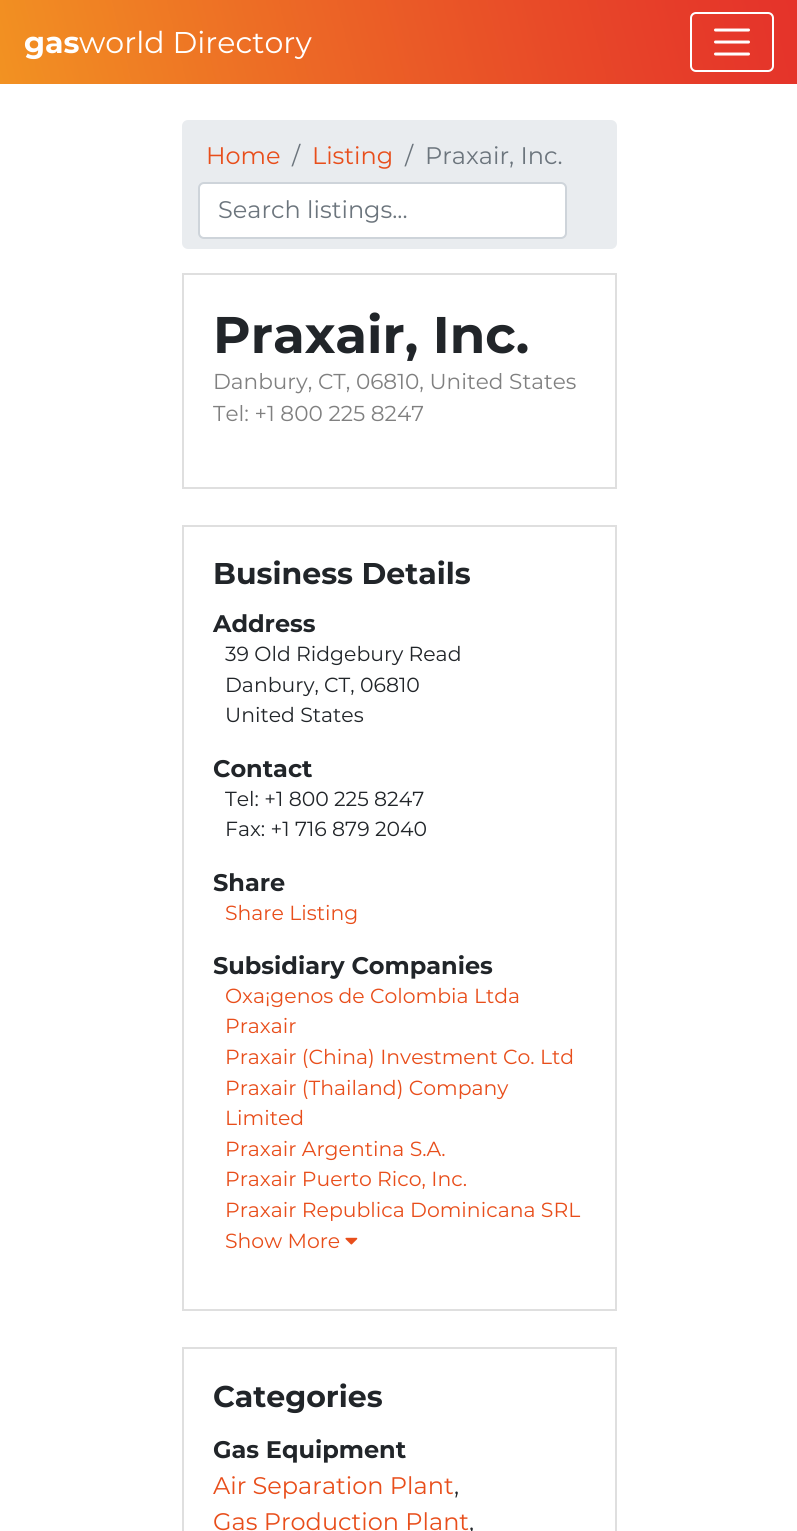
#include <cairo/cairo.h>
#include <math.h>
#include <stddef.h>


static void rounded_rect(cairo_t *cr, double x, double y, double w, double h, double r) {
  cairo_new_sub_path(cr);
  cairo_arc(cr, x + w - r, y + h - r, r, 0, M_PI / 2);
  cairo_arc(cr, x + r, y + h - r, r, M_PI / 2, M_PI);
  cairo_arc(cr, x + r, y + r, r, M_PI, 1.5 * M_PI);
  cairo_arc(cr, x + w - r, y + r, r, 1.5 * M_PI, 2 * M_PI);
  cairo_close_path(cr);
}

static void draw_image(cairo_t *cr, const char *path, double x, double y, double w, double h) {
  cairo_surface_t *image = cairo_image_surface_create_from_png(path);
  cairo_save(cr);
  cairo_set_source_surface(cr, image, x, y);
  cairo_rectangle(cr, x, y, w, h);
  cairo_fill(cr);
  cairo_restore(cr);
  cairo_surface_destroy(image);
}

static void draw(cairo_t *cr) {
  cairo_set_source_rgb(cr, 1, 1, 1);
  cairo_paint(cr);
  draw_image(cr, "images/1.png", 0, 0, 797, 84);
  rounded_rect(cr, 691, 13, 82, 58, 5);
  cairo_set_source_rgb(cr, 1, 1, 1);
  cairo_stroke(cr);
  cairo_new_path(cr);
  cairo_move_to(cr, 715.5, 30);
  cairo_line_to(cr, 748.5, 30);
  cairo_move_to(cr, 715.5, 42);
  cairo_line_to(cr, 748.5, 42);
  cairo_move_to(cr, 715.5, 54);
  cairo_line_to(cr, 748.5, 54);
  cairo_set_line_width(cr, 3);
  cairo_set_line_cap(cr, CAIRO_LINE_CAP_ROUND);
  cairo_stroke(cr);
  cairo_set_source_rgb(cr, 233 / 255.0, 236 / 255.0, 239 / 255.0);
  rounded_rect(cr, 182, 120, 435, 129, 6);
  cairo_fill(cr);
  cairo_set_source_rgb(cr, 1, 1, 1);
  rounded_rect(cr, 199, 183, 367, 55, 5);
  cairo_fill_preserve(cr);
  cairo_set_source_rgb(cr, 206 / 255.0, 212 / 255.0, 218 / 255.0);
  cairo_set_line_width(cr, 2);
  cairo_set_line_cap(cr, CAIRO_LINE_CAP_BUTT);
  cairo_stroke(cr);
  cairo_rectangle(cr, 183, 274, 433, 214);
  cairo_set_source_rgb(cr, 223 / 255.0, 223 / 255.0, 223 / 255.0);
  cairo_stroke(cr);
  cairo_rectangle(cr, 183, 526, 433, 784);
  cairo_stroke(cr);
  draw_image(cr, "images/2.png", 345, 1237, 13, 8);
  cairo_rectangle(cr, 183, 1348, 433, 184);
  cairo_stroke(cr);
  cairo_select_font_face(cr, "Montserrat", CAIRO_FONT_SLANT_NORMAL, CAIRO_FONT_WEIGHT_BOLD);
  cairo_set_font_size(cr, 30);
  cairo_set_source_rgb(cr, 1, 1, 1);
  cairo_move_to(cr, 24, 53);
  cairo_show_text(cr, "gas");
  cairo_select_font_face(cr, "Montserrat", CAIRO_FONT_SLANT_NORMAL, CAIRO_FONT_WEIGHT_NORMAL);
  cairo_move_to(cr, 79, 53);
  cairo_show_text(cr, "world Directory");
  cairo_set_font_size(cr, 24);
  cairo_set_source_rgb(cr, 232 / 255.0, 78 / 255.0, 27 / 255.0);
  cairo_move_to(cr, 206, 164);
  cairo_show_text(cr, "Home");
  cairo_set_source_rgb(cr, 108 / 255.0, 117 / 255.0, 125 / 255.0);
  cairo_move_to(cr, 292, 164);
  cairo_show_text(cr, "/");
  cairo_set_source_rgb(cr, 232 / 255.0, 78 / 255.0, 27 / 255.0);
  cairo_move_to(cr, 312, 164);
  cairo_show_text(cr, "Listing");
  cairo_set_source_rgb(cr, 108 / 255.0, 117 / 255.0, 125 / 255.0);
  cairo_move_to(cr, 405, 164);
  cairo_show_text(cr, "/");
  cairo_move_to(cr, 425, 164);
  cairo_show_text(cr, "Praxair, Inc.");
  cairo_move_to(cr, 218, 218);
  cairo_show_text(cr, "Search listings...");
  cairo_select_font_face(cr, "Montserrat", CAIRO_FONT_SLANT_NORMAL, CAIRO_FONT_WEIGHT_BOLD);
  cairo_set_font_size(cr, 51.5);
  cairo_set_source_rgb(cr, 33 / 255.0, 37 / 255.0, 41 / 255.0);
  cairo_move_to(cr, 213, 353);
  cairo_show_text(cr, "Praxair, Inc.");
  cairo_select_font_face(cr, "Montserrat", CAIRO_FONT_SLANT_NORMAL, CAIRO_FONT_WEIGHT_NORMAL);
  cairo_set_font_size(cr, 21.6);
  cairo_set_source_rgb(cr, 128 / 255.0, 128 / 255.0, 128 / 255.0);
  cairo_move_to(cr, 213, 389);
  cairo_show_text(cr, "Danbury, CT, 06810, United States");
  cairo_move_to(cr, 213, 421);
  cairo_show_text(cr, "Tel: +1 800 225 8247");
  cairo_select_font_face(cr, "Montserrat", CAIRO_FONT_SLANT_NORMAL, CAIRO_FONT_WEIGHT_BOLD);
  cairo_set_font_size(cr, 30);
  cairo_set_source_rgb(cr, 33 / 255.0, 37 / 255.0, 41 / 255.0);
  cairo_move_to(cr, 213, 584);
  cairo_show_text(cr, "Business Details");
  cairo_set_font_size(cr, 24);
  cairo_move_to(cr, 213, 632);
  cairo_show_text(cr, "Address");
  cairo_select_font_face(cr, "Montserrat", CAIRO_FONT_SLANT_NORMAL, CAIRO_FONT_WEIGHT_NORMAL);
  cairo_set_font_size(cr, 20.4);
  cairo_move_to(cr, 225, 661);
  cairo_show_text(cr, "39 Old Ridgebury Read");
  cairo_move_to(cr, 225, 692);
  cairo_show_text(cr, "Danbury, CT, 06810");
  cairo_move_to(cr, 225, 722);
  cairo_show_text(cr, "United States");
  cairo_select_font_face(cr, "Montserrat", CAIRO_FONT_SLANT_NORMAL, CAIRO_FONT_WEIGHT_BOLD);
  cairo_set_font_size(cr, 24);
  cairo_move_to(cr, 213, 777);
  cairo_show_text(cr, "Contact");
  cairo_select_font_face(cr, "Montserrat", CAIRO_FONT_SLANT_NORMAL, CAIRO_FONT_WEIGHT_NORMAL);
  cairo_set_font_size(cr, 20.4);
  cairo_move_to(cr, 225, 806);
  cairo_show_text(cr, "Tel: +1 800 225 8247");
  cairo_move_to(cr, 225, 836);
  cairo_show_text(cr, "Fax: +1 716 879 2040");
  cairo_select_font_face(cr, "Montserrat", CAIRO_FONT_SLANT_NORMAL, CAIRO_FONT_WEIGHT_BOLD);
  cairo_set_font_size(cr, 24);
  cairo_move_to(cr, 213, 891);
  cairo_show_text(cr, "Share");
  cairo_select_font_face(cr, "Montserrat", CAIRO_FONT_SLANT_NORMAL, CAIRO_FONT_WEIGHT_NORMAL);
  cairo_set_font_size(cr, 20.4);
  cairo_set_source_rgb(cr, 232 / 255.0, 78 / 255.0, 27 / 255.0);
  cairo_move_to(cr, 225, 920);
  cairo_show_text(cr, "Share Listing");
  cairo_select_font_face(cr, "Montserrat", CAIRO_FONT_SLANT_NORMAL, CAIRO_FONT_WEIGHT_BOLD);
  cairo_set_font_size(cr, 24);
  cairo_set_source_rgb(cr, 33 / 255.0, 37 / 255.0, 41 / 255.0);
  cairo_move_to(cr, 213, 974);
  cairo_show_text(cr, "Subsidiary Companies");
  cairo_select_font_face(cr, "Montserrat", CAIRO_FONT_SLANT_NORMAL, CAIRO_FONT_WEIGHT_NORMAL);
  cairo_set_font_size(cr, 20.4);
  cairo_set_source_rgb(cr, 232 / 255.0, 78 / 255.0, 27 / 255.0);
  cairo_move_to(cr, 225, 1003);
  cairo_show_text(cr, "Oxa¡genos de Colombia Ltda");
  cairo_move_to(cr, 225, 1033);
  cairo_show_text(cr, "Praxair");
  cairo_move_to(cr, 225, 1064);
  cairo_show_text(cr, "Praxair (China) Investment Co. Ltd");
  cairo_move_to(cr, 225, 1095);
  cairo_show_text(cr, "Praxair (Thailand) Company");
  cairo_move_to(cr, 225, 1125);
  cairo_show_text(cr, "Limited");
  cairo_move_to(cr, 225, 1156);
  cairo_show_text(cr, "Praxair Argentina S.A.");
  cairo_move_to(cr, 225, 1186);
  cairo_show_text(cr, "Praxair Puerto Rico, Inc.");
  cairo_move_to(cr, 225, 1217);
  cairo_show_text(cr, "Praxair Republica Dominicana SRL");
  cairo_move_to(cr, 225, 1248);
  cairo_show_text(cr, "Show More");
  cairo_select_font_face(cr, "Montserrat", CAIRO_FONT_SLANT_NORMAL, CAIRO_FONT_WEIGHT_BOLD);
  cairo_set_font_size(cr, 30);
  cairo_set_source_rgb(cr, 33 / 255.0, 37 / 255.0, 41 / 255.0);
  cairo_move_to(cr, 213, 1407);
  cairo_show_text(cr, "Categories");
  cairo_set_font_size(cr, 24);
  cairo_move_to(cr, 213, 1458);
  cairo_show_text(cr, "Gas Equipment");
  cairo_select_font_face(cr, "Montserrat", CAIRO_FONT_SLANT_NORMAL, CAIRO_FONT_WEIGHT_NORMAL);
  cairo_set_source_rgb(cr, 232 / 255.0, 78 / 255.0, 27 / 255.0);
  cairo_move_to(cr, 213, 1494);
  cairo_show_text(cr, "Air Separation Plant");
  cairo_set_source_rgb(cr, 33 / 255.0, 37 / 255.0, 41 / 255.0);
  cairo_move_to(cr, 454, 1494);
  cairo_show_text(cr, ",");
  cairo_set_source_rgb(cr, 232 / 255.0, 78 / 255.0, 27 / 255.0);
  cairo_move_to(cr, 213, 1530);
  cairo_show_text(cr, "Gas Production Plant");
  cairo_set_source_rgb(cr, 33 / 255.0, 37 / 255.0, 41 / 255.0);
  cairo_move_to(cr, 469, 1530);
  cairo_show_text(cr, ",");
}

int main(void) {
  cairo_surface_t *surface = cairo_image_surface_create(CAIRO_FORMAT_RGB24, 797, 1531);
  cairo_t *cr = cairo_create(surface);
  cairo_font_options_t *options = cairo_font_options_create();
  cairo_font_options_set_hint_metrics(options, CAIRO_HINT_METRICS_OFF);
  cairo_font_options_set_hint_style(options, CAIRO_HINT_STYLE_NONE);
  cairo_set_font_options(cr, options);
  cairo_set_miter_limit(cr, 4);
  draw(cr);
  cairo_surface_write_to_png(surface, "out.png");
  cairo_font_options_destroy(options);
  cairo_destroy(cr);
  cairo_surface_destroy(surface);
  return 0;
}
